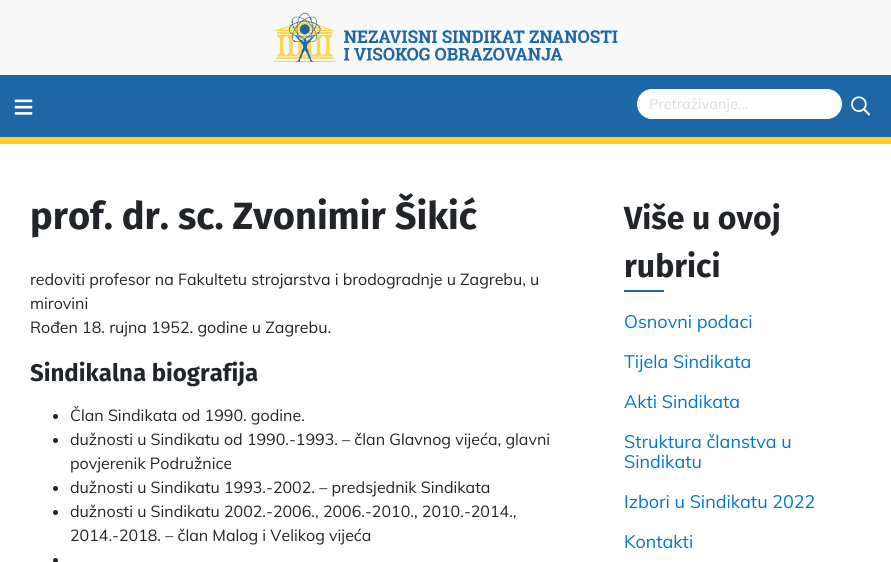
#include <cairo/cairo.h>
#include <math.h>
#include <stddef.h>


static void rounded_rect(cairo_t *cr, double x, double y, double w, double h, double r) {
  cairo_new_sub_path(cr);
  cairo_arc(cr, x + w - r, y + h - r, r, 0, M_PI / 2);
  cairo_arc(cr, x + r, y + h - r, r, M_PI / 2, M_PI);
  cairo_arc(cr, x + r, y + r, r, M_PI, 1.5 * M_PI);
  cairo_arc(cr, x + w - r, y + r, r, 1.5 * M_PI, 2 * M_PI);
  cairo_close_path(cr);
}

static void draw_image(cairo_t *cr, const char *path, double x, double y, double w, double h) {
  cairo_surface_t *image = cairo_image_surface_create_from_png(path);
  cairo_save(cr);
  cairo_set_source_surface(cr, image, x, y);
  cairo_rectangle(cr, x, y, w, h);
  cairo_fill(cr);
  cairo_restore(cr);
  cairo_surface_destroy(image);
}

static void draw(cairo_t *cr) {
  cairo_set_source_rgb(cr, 1, 1, 1);
  cairo_paint(cr);
  cairo_set_source_rgb(cr, 248 / 255.0, 248 / 255.0, 248 / 255.0);
  cairo_rectangle(cr, 0, 0, 891, 75);
  cairo_fill(cr);
  draw_image(cr, "images/1.png", 273, 12, 345, 50);
  cairo_set_source_rgb(cr, 30 / 255.0, 103 / 255.0, 167 / 255.0);
  cairo_rectangle(cr, 0, 75, 891, 62);
  cairo_fill(cr);
  cairo_set_source_rgb(cr, 253 / 255.0, 204 / 255.0, 36 / 255.0);
  cairo_rectangle(cr, 0, 137, 891, 7);
  cairo_fill(cr);
  cairo_set_source_rgb(cr, 1, 1, 1);
  rounded_rect(cr, 637, 89, 205, 30, 15);
  cairo_fill(cr);
  draw_image(cr, "images/2.png", 851, 96, 19, 20);
  cairo_set_source_rgb(cr, 33 / 255.0, 37 / 255.0, 41 / 255.0);
  cairo_arc(cr, 55.5, 416.5, 2.5, 0, 2 * M_PI);
  cairo_fill(cr);
  cairo_arc(cr, 55.5, 440.5, 2.5, 0, 2 * M_PI);
  cairo_fill(cr);
  cairo_arc(cr, 55.5, 488.5, 2.5, 0, 2 * M_PI);
  cairo_fill(cr);
  cairo_arc(cr, 55.5, 512.5, 2.5, 0, 2 * M_PI);
  cairo_fill(cr);
  cairo_arc(cr, 55.5, 560.5, 2.5, 0, 2 * M_PI);
  cairo_fill(cr);
  cairo_set_source_rgb(cr, 30 / 255.0, 103 / 255.0, 167 / 255.0);
  cairo_rectangle(cr, 624, 290, 40, 2);
  cairo_fill(cr);
  cairo_select_font_face(cr, "Liberation Sans", CAIRO_FONT_SLANT_NORMAL, CAIRO_FONT_WEIGHT_NORMAL);
  cairo_set_font_size(cr, 36);
  cairo_set_source_rgb(cr, 1, 1, 1);
  cairo_move_to(cr, 13, 119);
  cairo_show_text(cr, "≡");
  cairo_select_font_face(cr, "Muli", CAIRO_FONT_SLANT_NORMAL, CAIRO_FONT_WEIGHT_NORMAL);
  cairo_set_font_size(cr, 14.5);
  cairo_set_source_rgb(cr, 221 / 255.0, 221 / 255.0, 221 / 255.0);
  cairo_move_to(cr, 649, 109);
  cairo_show_text(cr, "Pretraživanje...");
  cairo_select_font_face(cr, "Fira Sans", CAIRO_FONT_SLANT_NORMAL, CAIRO_FONT_WEIGHT_BOLD);
  cairo_set_font_size(cr, 38);
  cairo_set_source_rgb(cr, 33 / 255.0, 37 / 255.0, 41 / 255.0);
  cairo_move_to(cr, 30, 229);
  cairo_show_text(cr, "prof. dr. sc. Zvonimir Šikić");
  cairo_select_font_face(cr, "Muli", CAIRO_FONT_SLANT_NORMAL, CAIRO_FONT_WEIGHT_NORMAL);
  cairo_set_font_size(cr, 16);
  cairo_move_to(cr, 30, 285);
  cairo_show_text(cr, "redoviti profesor na Fakultetu strojarstva i brodogradnje u Zagrebu, u");
  cairo_move_to(cr, 30, 309);
  cairo_show_text(cr, "mirovini");
  cairo_move_to(cr, 30, 333);
  cairo_show_text(cr, "Rođen 18. rujna 1952. godine u Zagrebu.");
  cairo_select_font_face(cr, "Fira Sans", CAIRO_FONT_SLANT_NORMAL, CAIRO_FONT_WEIGHT_BOLD);
  cairo_set_font_size(cr, 24);
  cairo_move_to(cr, 30, 381);
  cairo_show_text(cr, "Sindikalna biografija");
  cairo_select_font_face(cr, "Muli", CAIRO_FONT_SLANT_NORMAL, CAIRO_FONT_WEIGHT_NORMAL);
  cairo_set_font_size(cr, 16);
  cairo_move_to(cr, 70, 421);
  cairo_show_text(cr, "Član Sindikata od 1990. godine.");
  cairo_move_to(cr, 70, 445);
  cairo_show_text(cr, "dužnosti u Sindikatu od 1990.-1993. – član Glavnog vijeća, glavni");
  cairo_move_to(cr, 70, 469);
  cairo_show_text(cr, "povjerenik Podružnice");
  cairo_move_to(cr, 70, 493);
  cairo_show_text(cr, "dužnosti u Sindikatu 1993.-2002. – predsjednik Sindikata");
  cairo_move_to(cr, 70, 517);
  cairo_show_text(cr, "dužnosti u Sindikatu 2002.-2006., 2006.-2010., 2010.-2014.,");
  cairo_move_to(cr, 70, 541);
  cairo_show_text(cr, "2014.-2018. – član Malog i Velikog vijeća");
  cairo_select_font_face(cr, "Fira Sans", CAIRO_FONT_SLANT_NORMAL, CAIRO_FONT_WEIGHT_BOLD);
  cairo_set_font_size(cr, 32);
  cairo_move_to(cr, 624, 229);
  cairo_show_text(cr, "Više u ovoj");
  cairo_move_to(cr, 624, 277);
  cairo_show_text(cr, "rubrici");
  cairo_select_font_face(cr, "Muli", CAIRO_FONT_SLANT_NORMAL, CAIRO_FONT_WEIGHT_NORMAL);
  cairo_set_font_size(cr, 18);
  cairo_set_source_rgb(cr, 2 / 255.0, 118 / 255.0, 205 / 255.0);
  cairo_move_to(cr, 624, 328);
  cairo_show_text(cr, "Osnovni podaci");
  cairo_move_to(cr, 624, 368);
  cairo_show_text(cr, "Tijela Sindikata");
  cairo_move_to(cr, 624, 408);
  cairo_show_text(cr, "Akti Sindikata");
  cairo_move_to(cr, 624, 448);
  cairo_show_text(cr, "Struktura članstva u");
  cairo_move_to(cr, 624, 468);
  cairo_show_text(cr, "Sindikatu");
  cairo_move_to(cr, 624, 508);
  cairo_show_text(cr, "Izbori u Sindikatu 2022");
  cairo_move_to(cr, 624, 548);
  cairo_show_text(cr, "Kontakti");
}

int main(void) {
  cairo_surface_t *surface = cairo_image_surface_create(CAIRO_FORMAT_RGB24, 891, 562);
  cairo_t *cr = cairo_create(surface);
  cairo_font_options_t *options = cairo_font_options_create();
  cairo_font_options_set_hint_metrics(options, CAIRO_HINT_METRICS_OFF);
  cairo_font_options_set_hint_style(options, CAIRO_HINT_STYLE_NONE);
  cairo_set_font_options(cr, options);
  cairo_set_miter_limit(cr, 4);
  draw(cr);
  cairo_surface_write_to_png(surface, "out.png");
  cairo_font_options_destroy(options);
  cairo_destroy(cr);
  cairo_surface_destroy(surface);
  return 0;
}
